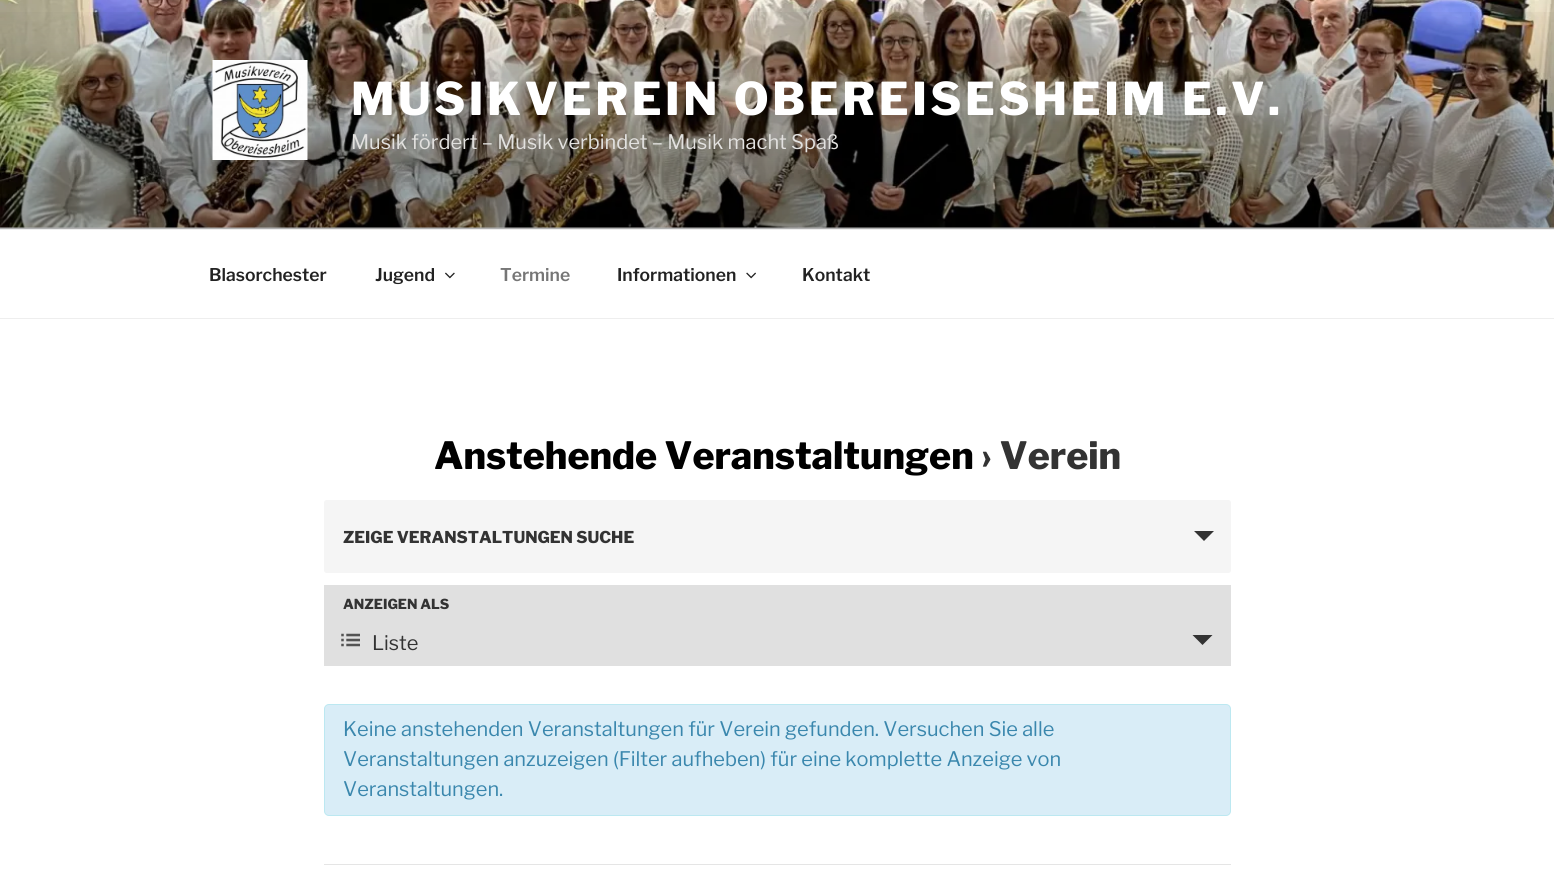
#include <cairo/cairo.h>
#include <math.h>
#include <stddef.h>


static void draw_spaced(cairo_t *cr, double x, double y, const char *s, double letter, double word) {
  cairo_move_to(cr, x, y);
  while (*s) {
    char ch[5] = {0};
    int n = 0;
    do ch[n++] = *s++; while ((*s & 0xC0) == 0x80);
    cairo_show_text(cr, ch);
    cairo_rel_move_to(cr, letter + word * (*ch == ' '), 0);
  }
}

static void rounded_rect(cairo_t *cr, double x, double y, double w, double h, double r) {
  cairo_new_sub_path(cr);
  cairo_arc(cr, x + w - r, y + h - r, r, 0, M_PI / 2);
  cairo_arc(cr, x + r, y + h - r, r, M_PI / 2, M_PI);
  cairo_arc(cr, x + r, y + r, r, M_PI, 1.5 * M_PI);
  cairo_arc(cr, x + w - r, y + r, r, 1.5 * M_PI, 2 * M_PI);
  cairo_close_path(cr);
}

static void draw_image(cairo_t *cr, const char *path, double x, double y, double w, double h) {
  cairo_surface_t *image = cairo_image_surface_create_from_png(path);
  cairo_save(cr);
  cairo_set_source_surface(cr, image, x, y);
  cairo_rectangle(cr, x, y, w, h);
  cairo_fill(cr);
  cairo_restore(cr);
  cairo_surface_destroy(image);
}

static void draw(cairo_t *cr) {
  cairo_pattern_t *gradient;
  cairo_set_source_rgb(cr, 1, 1, 1);
  cairo_paint(cr);
  cairo_set_source_rgb(cr, 250 / 255.0, 250 / 255.0, 250 / 255.0);
  cairo_rectangle(cr, 0, 227, 1554, 2);
  cairo_fill(cr);
  draw_image(cr, "images/1.png", 0, 0, 1554, 228);
  gradient = cairo_pattern_create_linear(778, 0, 778, 229);
  cairo_pattern_add_color_stop_rgba(gradient, 0, 0, 0, 0, 0);
  cairo_pattern_add_color_stop_rgba(gradient, 0.75, 0, 0, 0, 0.3);
  cairo_pattern_add_color_stop_rgba(gradient, 1, 0, 0, 0, 0.3);
  cairo_set_source(cr, gradient);
  cairo_pattern_destroy(gradient);
  cairo_rectangle(cr, 0, 12, 1554, 217);
  cairo_fill(cr);
  draw_image(cr, "images/2.png", 212, 60, 96, 100);
  cairo_set_source_rgb(cr, 238 / 255.0, 238 / 255.0, 238 / 255.0);
  cairo_rectangle(cr, 0, 229, 1554, 1);
  cairo_fill(cr);
  cairo_rectangle(cr, 0, 318, 1554, 1);
  cairo_fill(cr);
  draw_image(cr, "images/3.png", 445, 272, 10, 7);
  draw_image(cr, "images/4.png", 746, 272, 10, 7);
  cairo_set_source_rgb(cr, 245 / 255.0, 245 / 255.0, 245 / 255.0);
  rounded_rect(cr, 324, 500, 907, 73, 2.5);
  cairo_fill(cr);
  cairo_set_source_rgb(cr, 51 / 255.0, 51 / 255.0, 51 / 255.0);
  cairo_new_path(cr);
  cairo_move_to(cr, 1194, 531);
  cairo_line_to(cr, 1214, 531);
  cairo_line_to(cr, 1204, 541);
  cairo_close_path(cr);
  cairo_fill(cr);
  cairo_set_source_rgb(cr, 224 / 255.0, 224 / 255.0, 224 / 255.0);
  cairo_rectangle(cr, 324, 585, 907, 81);
  cairo_fill(cr);
  draw_image(cr, "images/5.png", 341, 633, 19, 14);
  cairo_set_source_rgb(cr, 51 / 255.0, 51 / 255.0, 51 / 255.0);
  cairo_new_path(cr);
  cairo_move_to(cr, 1192.5, 635);
  cairo_line_to(cr, 1212.5, 635);
  cairo_line_to(cr, 1202.5, 645);
  cairo_close_path(cr);
  cairo_fill(cr);
  cairo_set_source_rgb(cr, 217 / 255.0, 237 / 255.0, 247 / 255.0);
  rounded_rect(cr, 324.5, 704.5, 906, 111, 4.5);
  cairo_fill_preserve(cr);
  cairo_set_source_rgb(cr, 188 / 255.0, 232 / 255.0, 241 / 255.0);
  cairo_set_line_width(cr, 1);
  cairo_stroke(cr);
  cairo_set_source_rgb(cr, 229 / 255.0, 229 / 255.0, 229 / 255.0);
  cairo_rectangle(cr, 324, 864, 907, 1);
  cairo_fill(cr);
  cairo_select_font_face(cr, "Libre Franklin ExtraBold", CAIRO_FONT_SLANT_NORMAL, CAIRO_FONT_WEIGHT_NORMAL);
  cairo_set_font_size(cr, 45);
  cairo_set_source_rgb(cr, 1, 1, 1);
  draw_spaced(cr, 351, 115, "MUSIKVEREIN OBEREISESHEIM E.V.", 3.6, 0);
  cairo_select_font_face(cr, "Libre Franklin", CAIRO_FONT_SLANT_NORMAL, CAIRO_FONT_WEIGHT_NORMAL);
  cairo_set_font_size(cr, 20);
  cairo_set_source_rgb(cr, 226 / 255.0, 225 / 255.0, 223 / 255.0);
  cairo_move_to(cr, 351, 149);
  cairo_show_text(cr, "Musik fördert – Musik verbindet – Musik macht Spaß");
  cairo_select_font_face(cr, "Libre Franklin SemiBold", CAIRO_FONT_SLANT_NORMAL, CAIRO_FONT_WEIGHT_NORMAL);
  cairo_set_font_size(cr, 17.5);
  cairo_set_source_rgb(cr, 34 / 255.0, 34 / 255.0, 34 / 255.0);
  cairo_move_to(cr, 209, 281);
  cairo_show_text(cr, "Blasorchester");
  cairo_move_to(cr, 375, 281);
  cairo_show_text(cr, "Jugend");
  cairo_set_source_rgb(cr, 118 / 255.0, 118 / 255.0, 118 / 255.0);
  cairo_move_to(cr, 500, 281);
  cairo_show_text(cr, "Termine");
  cairo_set_source_rgb(cr, 34 / 255.0, 34 / 255.0, 34 / 255.0);
  cairo_move_to(cr, 617, 281);
  cairo_show_text(cr, "Informationen");
  cairo_move_to(cr, 802, 281);
  cairo_show_text(cr, "Kontakt");
  cairo_select_font_face(cr, "Libre Franklin ExtraBold", CAIRO_FONT_SLANT_NORMAL, CAIRO_FONT_WEIGHT_NORMAL);
  cairo_set_font_size(cr, 37.5);
  cairo_set_source_rgb(cr, 0, 0, 0);
  cairo_move_to(cr, 434, 469);
  cairo_show_text(cr, "Anstehende Veranstaltungen");
  cairo_set_source_rgb(cr, 51 / 255.0, 51 / 255.0, 51 / 255.0);
  cairo_move_to(cr, 981, 469);
  cairo_show_text(cr, "› Verein");
  cairo_set_font_size(cr, 16.25);
  cairo_move_to(cr, 343, 543);
  cairo_show_text(cr, "ZEIGE VERANSTALTUNGEN SUCHE");
  cairo_set_font_size(cr, 13.75);
  cairo_move_to(cr, 343, 609);
  cairo_show_text(cr, "ANZEIGEN ALS");
  cairo_select_font_face(cr, "Libre Franklin", CAIRO_FONT_SLANT_NORMAL, CAIRO_FONT_WEIGHT_NORMAL);
  cairo_set_font_size(cr, 20);
  cairo_move_to(cr, 372, 650);
  cairo_show_text(cr, "Liste");
  cairo_set_source_rgb(cr, 58 / 255.0, 135 / 255.0, 173 / 255.0);
  cairo_move_to(cr, 343, 736);
  cairo_show_text(cr, "Keine anstehenden Veranstaltungen für Verein gefunden. Versuchen Sie alle");
  cairo_move_to(cr, 343, 766);
  cairo_show_text(cr, "Veranstaltungen anzuzeigen (Filter aufheben) für eine komplette Anzeige von");
  cairo_move_to(cr, 343, 796);
  cairo_show_text(cr, "Veranstaltungen.");
}

int main(void) {
  cairo_surface_t *surface = cairo_image_surface_create(CAIRO_FORMAT_RGB24, 1554, 884);
  cairo_t *cr = cairo_create(surface);
  cairo_font_options_t *options = cairo_font_options_create();
  cairo_font_options_set_hint_metrics(options, CAIRO_HINT_METRICS_OFF);
  cairo_font_options_set_hint_style(options, CAIRO_HINT_STYLE_NONE);
  cairo_set_font_options(cr, options);
  cairo_set_miter_limit(cr, 4);
  draw(cr);
  cairo_surface_write_to_png(surface, "out.png");
  cairo_font_options_destroy(options);
  cairo_destroy(cr);
  cairo_surface_destroy(surface);
  return 0;
}
